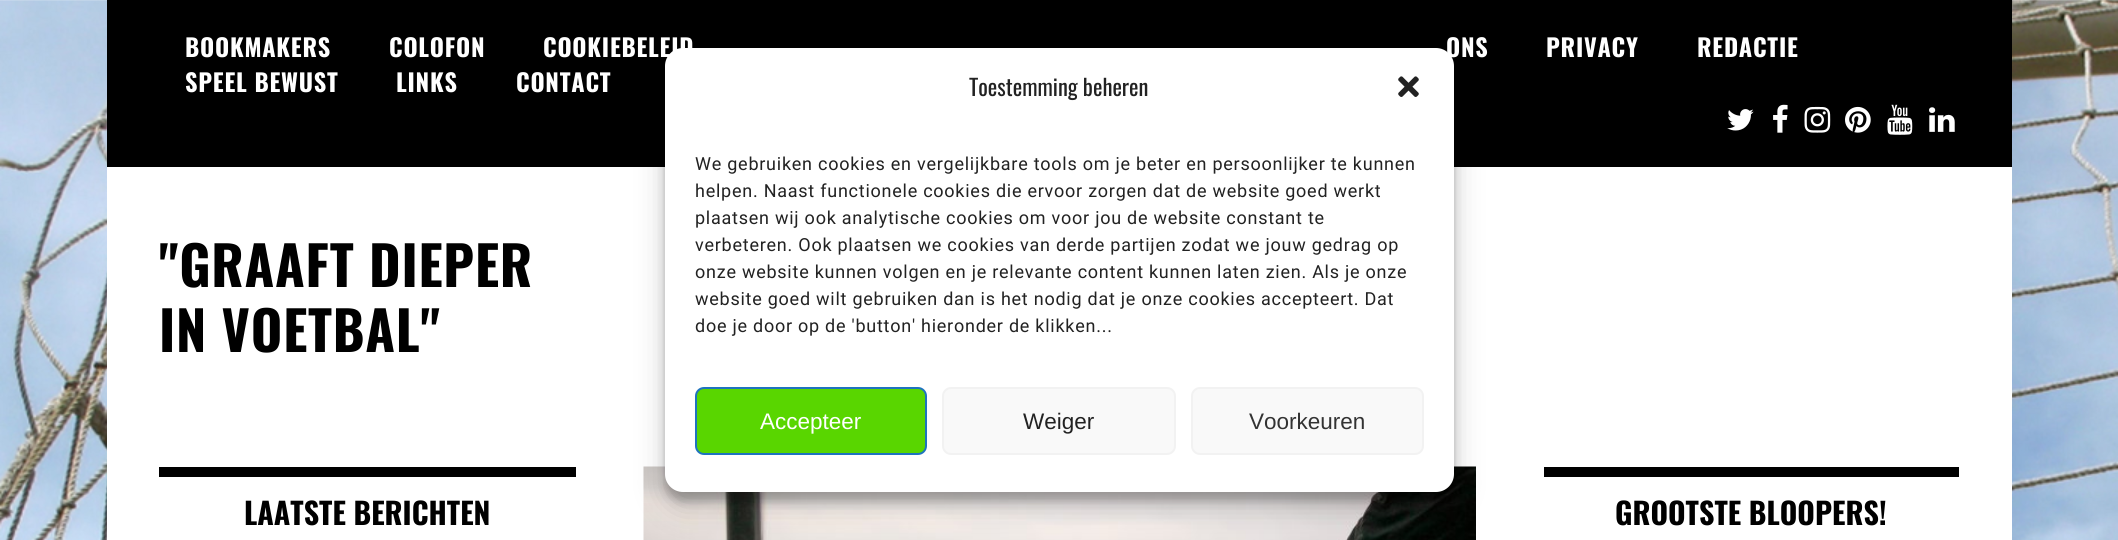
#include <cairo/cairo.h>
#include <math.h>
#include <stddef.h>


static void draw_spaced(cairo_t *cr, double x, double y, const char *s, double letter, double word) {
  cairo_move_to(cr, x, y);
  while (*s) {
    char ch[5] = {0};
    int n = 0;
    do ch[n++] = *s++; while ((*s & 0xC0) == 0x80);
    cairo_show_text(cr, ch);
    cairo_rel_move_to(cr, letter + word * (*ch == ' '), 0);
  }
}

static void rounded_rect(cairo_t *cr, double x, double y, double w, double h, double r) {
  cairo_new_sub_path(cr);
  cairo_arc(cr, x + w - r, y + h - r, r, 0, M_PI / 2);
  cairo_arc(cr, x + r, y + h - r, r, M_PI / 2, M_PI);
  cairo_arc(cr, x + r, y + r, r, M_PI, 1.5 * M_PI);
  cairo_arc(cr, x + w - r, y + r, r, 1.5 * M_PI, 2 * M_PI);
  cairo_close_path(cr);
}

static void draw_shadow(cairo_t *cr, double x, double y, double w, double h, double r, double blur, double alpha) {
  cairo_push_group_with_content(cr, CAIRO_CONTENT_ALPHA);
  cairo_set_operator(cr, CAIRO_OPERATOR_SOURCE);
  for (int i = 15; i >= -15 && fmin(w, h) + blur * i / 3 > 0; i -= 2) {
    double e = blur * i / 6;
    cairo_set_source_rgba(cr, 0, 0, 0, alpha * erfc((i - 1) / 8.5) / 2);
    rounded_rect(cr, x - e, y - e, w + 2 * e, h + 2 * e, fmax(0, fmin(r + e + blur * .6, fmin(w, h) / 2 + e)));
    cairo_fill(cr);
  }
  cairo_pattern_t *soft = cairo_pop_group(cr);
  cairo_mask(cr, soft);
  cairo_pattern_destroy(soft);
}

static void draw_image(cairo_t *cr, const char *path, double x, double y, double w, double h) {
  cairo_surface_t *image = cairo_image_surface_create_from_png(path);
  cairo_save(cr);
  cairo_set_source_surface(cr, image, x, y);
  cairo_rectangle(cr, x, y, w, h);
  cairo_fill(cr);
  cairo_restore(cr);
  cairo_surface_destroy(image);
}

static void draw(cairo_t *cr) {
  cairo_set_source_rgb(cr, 1, 1, 1);
  cairo_paint(cr);
  draw_image(cr, "images/1.png", 0, 0, 2118, 540);
  cairo_set_source_rgb(cr, 1, 1, 1);
  cairo_rectangle(cr, 107, 167, 1905, 373);
  cairo_fill(cr);
  cairo_set_source_rgb(cr, 0, 0, 0);
  cairo_rectangle(cr, 107, 0, 1905, 167);
  cairo_fill(cr);
  draw_image(cr, "images/2.png", 1727, 109, 27, 22);
  draw_image(cr, "images/3.png", 1773, 104, 15, 29);
  draw_image(cr, "images/4.png", 1804, 106, 27, 27);
  draw_image(cr, "images/5.png", 1845, 106, 26, 27);
  draw_image(cr, "images/6.png", 1887, 104, 26, 31);
  draw_image(cr, "images/7.png", 1929, 107, 26, 25);
  cairo_rectangle(cr, 159, 467, 417, 10);
  cairo_fill(cr);
  draw_image(cr, "images/8.png", 643, 466, 833, 74);
  cairo_rectangle(cr, 1544, 467, 415, 10);
  cairo_fill(cr);
  cairo_set_source_rgb(cr, 0, 0, 0);
  draw_shadow(cr, 665, 57, 789, 444, 18, 4.5, 0.23);
  draw_shadow(cr, 665, 63, 789, 444, 18, 15, 0.19);
  cairo_set_source_rgb(cr, 1, 1, 1);
  rounded_rect(cr, 665, 48, 789, 444, 18);
  cairo_fill(cr);
  draw_image(cr, "images/9.png", 1398, 76, 21, 21);
  cairo_set_source_rgb(cr, 89 / 255.0, 214 / 255.0, 0);
  rounded_rect(cr, 696, 388, 230, 66, 8);
  cairo_fill_preserve(cr);
  cairo_set_source_rgb(cr, 30 / 255.0, 115 / 255.0, 190 / 255.0);
  cairo_stroke(cr);
  cairo_set_source_rgb(cr, 249 / 255.0, 249 / 255.0, 249 / 255.0);
  rounded_rect(cr, 943, 388, 232, 66, 8);
  cairo_fill_preserve(cr);
  cairo_set_source_rgb(cr, 242 / 255.0, 242 / 255.0, 242 / 255.0);
  cairo_stroke(cr);
  cairo_set_source_rgb(cr, 249 / 255.0, 249 / 255.0, 249 / 255.0);
  rounded_rect(cr, 1192, 388, 231, 66, 8);
  cairo_fill_preserve(cr);
  cairo_set_source_rgb(cr, 242 / 255.0, 242 / 255.0, 242 / 255.0);
  cairo_stroke(cr);
  cairo_select_font_face(cr, "Oswald", CAIRO_FONT_SLANT_NORMAL, CAIRO_FONT_WEIGHT_BOLD);
  cairo_set_font_size(cr, 24.25);
  cairo_set_source_rgb(cr, 1, 1, 1);
  draw_spaced(cr, 185, 57, "BOOKMAKERS", 0.75, 0);
  draw_spaced(cr, 389, 57, "COLOFON", 0.75, 0);
  draw_spaced(cr, 543, 57, "COOKIEBELEID", 0.75, 0);
  draw_spaced(cr, 1446, 57, "ONS", 0.75, 0);
  draw_spaced(cr, 1546, 57, "PRIVACY", 0.75, 0);
  draw_spaced(cr, 1697, 57, "REDACTIE", 0.75, 0);
  draw_spaced(cr, 185, 92, "SPEEL BEWUST", 0.75, 0);
  draw_spaced(cr, 396, 92, "LINKS", 0.75, 0);
  draw_spaced(cr, 516, 92, "CONTACT", 0.75, 0);
  cairo_set_font_size(cr, 54);
  cairo_set_source_rgb(cr, 0, 0, 0);
  draw_spaced(cr, 159, 287, "\"GRAAFT DIEPER", 0.75, 0);
  draw_spaced(cr, 159, 352, "IN VOETBAL\"", 0.75, 0);
  cairo_set_font_size(cr, 30);
  cairo_move_to(cr, 244, 525);
  cairo_show_text(cr, "LAATSTE BERICHTEN");
  cairo_move_to(cr, 1615, 525);
  cairo_show_text(cr, "GROOTSTE BLOOPERS!");
  cairo_select_font_face(cr, "Oswald", CAIRO_FONT_SLANT_NORMAL, CAIRO_FONT_WEIGHT_NORMAL);
  cairo_set_font_size(cr, 22.5);
  cairo_set_source_rgb(cr, 34 / 255.0, 34 / 255.0, 34 / 255.0);
  cairo_move_to(cr, 969, 96);
  cairo_show_text(cr, "Toestemming beheren");
  cairo_select_font_face(cr, "Roboto", CAIRO_FONT_SLANT_NORMAL, CAIRO_FONT_WEIGHT_NORMAL);
  cairo_set_font_size(cr, 18);
  draw_spaced(cr, 695, 170, "We gebruiken cookies en vergelijkbare tools om je beter en persoonlijker te kunnen", 0.75, 0);
  draw_spaced(cr, 695, 197, "helpen. Naast functionele cookies die ervoor zorgen dat de website goed werkt", 0.75, 0);
  draw_spaced(cr, 695, 224, "plaatsen wij ook analytische cookies om voor jou de website constant te", 0.75, 0);
  draw_spaced(cr, 695, 251, "verbeteren. Ook plaatsen we cookies van derde partijen zodat we jouw gedrag op", 0.75, 0);
  draw_spaced(cr, 695, 278, "onze website kunnen volgen en je relevante content kunnen laten zien. Als je onze", 0.75, 0);
  draw_spaced(cr, 695, 305, "website goed wilt gebruiken dan is het nodig dat je onze cookies accepteert. Dat", 0.75, 0);
  draw_spaced(cr, 695, 332, "doe je door op de 'button' hieronder de klikken...", 0.75, 0);
  cairo_select_font_face(cr, "Liberation Sans", CAIRO_FONT_SLANT_NORMAL, CAIRO_FONT_WEIGHT_NORMAL);
  cairo_set_font_size(cr, 22.5);
  cairo_set_source_rgb(cr, 1, 1, 1);
  cairo_move_to(cr, 760, 429);
  cairo_show_text(cr, "Accepteer");
  cairo_set_source_rgb(cr, 34 / 255.0, 34 / 255.0, 34 / 255.0);
  cairo_move_to(cr, 1023, 429);
  cairo_show_text(cr, "Weiger");
  cairo_set_source_rgb(cr, 51 / 255.0, 51 / 255.0, 51 / 255.0);
  cairo_move_to(cr, 1249, 429);
  cairo_show_text(cr, "Voorkeuren");
}

int main(void) {
  cairo_surface_t *surface = cairo_image_surface_create(CAIRO_FORMAT_RGB24, 2118, 540);
  cairo_t *cr = cairo_create(surface);
  cairo_font_options_t *options = cairo_font_options_create();
  cairo_font_options_set_hint_metrics(options, CAIRO_HINT_METRICS_OFF);
  cairo_font_options_set_hint_style(options, CAIRO_HINT_STYLE_NONE);
  cairo_set_font_options(cr, options);
  cairo_set_miter_limit(cr, 4);
  draw(cr);
  cairo_surface_write_to_png(surface, "out.png");
  cairo_font_options_destroy(options);
  cairo_destroy(cr);
  cairo_surface_destroy(surface);
  return 0;
}
